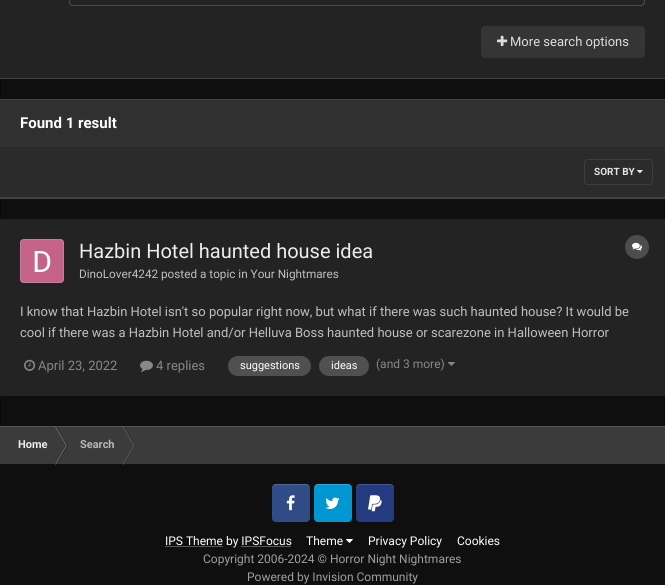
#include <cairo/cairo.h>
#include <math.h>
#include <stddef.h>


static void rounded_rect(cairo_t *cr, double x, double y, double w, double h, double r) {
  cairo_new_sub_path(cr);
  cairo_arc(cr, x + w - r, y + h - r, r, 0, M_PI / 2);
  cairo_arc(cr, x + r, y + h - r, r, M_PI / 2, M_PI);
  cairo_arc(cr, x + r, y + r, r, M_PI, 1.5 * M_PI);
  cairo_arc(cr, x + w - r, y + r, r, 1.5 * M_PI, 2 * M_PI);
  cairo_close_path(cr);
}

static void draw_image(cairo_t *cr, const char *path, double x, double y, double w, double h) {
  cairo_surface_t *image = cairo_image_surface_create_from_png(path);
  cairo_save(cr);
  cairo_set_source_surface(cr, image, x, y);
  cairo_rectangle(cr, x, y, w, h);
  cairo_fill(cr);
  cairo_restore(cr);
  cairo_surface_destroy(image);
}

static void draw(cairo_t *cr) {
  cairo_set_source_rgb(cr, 15 / 255.0, 15 / 255.0, 15 / 255.0);
  cairo_paint(cr);
  cairo_rectangle(cr, 0.5, -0.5, 664, 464);
  cairo_set_source_rgb(cr, 9 / 255.0, 9 / 255.0, 9 / 255.0);
  cairo_set_line_width(cr, 1);
  cairo_stroke(cr);
  cairo_set_source_rgb(cr, 35 / 255.0, 35 / 255.0, 35 / 255.0);
  cairo_rectangle(cr, 0, 0, 665, 78);
  cairo_fill(cr);
  cairo_set_source_rgb(cr, 66 / 255.0, 66 / 255.0, 66 / 255.0);
  cairo_rectangle(cr, 0, 78, 665, 1);
  cairo_fill(cr);
  draw_image(cr, "images/1.png", 50, 0, 2, 1);
  rounded_rect(cr, 69.5, -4.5, 575, 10, 3.5);
  cairo_set_source_rgb(cr, 75 / 255.0, 75 / 255.0, 75 / 255.0);
  cairo_stroke(cr);
  cairo_set_source_rgb(cr, 53 / 255.0, 53 / 255.0, 53 / 255.0);
  rounded_rect(cr, 481, 26, 164, 32, 4);
  cairo_fill(cr);
  draw_image(cr, "images/2.png", 497, 35, 11, 11);
  cairo_set_source_rgb(cr, 66 / 255.0, 66 / 255.0, 66 / 255.0);
  cairo_rectangle(cr, 0, 99, 665, 1);
  cairo_fill(cr);
  cairo_rectangle(cr, 0, 198, 665, 1);
  cairo_fill(cr);
  cairo_set_source_rgb(cr, 48 / 255.0, 48 / 255.0, 48 / 255.0);
  cairo_rectangle(cr, 0, 100, 665, 47);
  cairo_fill(cr);
  cairo_set_source_rgb(cr, 43 / 255.0, 43 / 255.0, 43 / 255.0);
  cairo_rectangle(cr, 0, 147, 665, 50);
  cairo_fill(cr);
  cairo_set_source_rgb(cr, 65 / 255.0, 65 / 255.0, 65 / 255.0);
  cairo_rectangle(cr, 0, 197, 665, 1);
  cairo_fill(cr);
  draw_image(cr, "images/3.png", 637, 170, 6, 4);
  rounded_rect(cr, 584.5, 159.5, 68, 25, 3.5);
  cairo_set_source_rgb(cr, 61 / 255.0, 61 / 255.0, 61 / 255.0);
  cairo_stroke(cr);
  cairo_set_source_rgb(cr, 35 / 255.0, 35 / 255.0, 35 / 255.0);
  cairo_rectangle(cr, 0, 219, 665, 177);
  cairo_fill(cr);
  draw_image(cr, "images/4.png", 20, 239, 44, 44);
  rounded_rect(cr, 20.5, 239.5, 43, 43, 3.5);
  cairo_set_source_rgba(cr, 191 / 255.0, 191 / 255.0, 191 / 255.0, 0.3);
  cairo_stroke(cr);
  cairo_set_source_rgb(cr, 77 / 255.0, 77 / 255.0, 77 / 255.0);
  cairo_arc(cr, 637, 247, 12, 0, 2 * M_PI);
  cairo_fill(cr);
  draw_image(cr, "images/5.png", 632, 242, 10, 9);
  draw_image(cr, "images/6.png", 24, 359, 12, 12);
  draw_image(cr, "images/7.png", 140, 360, 13, 12);
  cairo_set_source_rgb(cr, 80 / 255.0, 80 / 255.0, 80 / 255.0);
  rounded_rect(cr, 228, 356, 83, 20, 10);
  cairo_fill(cr);
  rounded_rect(cr, 319, 356, 50, 20, 10);
  cairo_fill(cr);
  draw_image(cr, "images/8.png", 448, 362, 7, 4);
  cairo_set_source_rgb(cr, 59 / 255.0, 59 / 255.0, 59 / 255.0);
  cairo_rectangle(cr, 0, 426, 665, 38);
  cairo_fill(cr);
  cairo_set_source_rgb(cr, 108 / 255.0, 108 / 255.0, 108 / 255.0);
  cairo_new_path(cr);
  cairo_move_to(cr, 55, 426.5);
  cairo_line_to(cr, 56, 426.5);
  cairo_line_to(cr, 67, 445.5);
  cairo_line_to(cr, 66, 445.5);
  cairo_close_path(cr);
  cairo_fill(cr);
  cairo_set_source_rgba(cr, 0, 0, 0, 0.3);
  cairo_new_path(cr);
  cairo_move_to(cr, 56, 426.5);
  cairo_line_to(cr, 57, 426.5);
  cairo_line_to(cr, 68, 445.5);
  cairo_line_to(cr, 67, 445.5);
  cairo_close_path(cr);
  cairo_fill(cr);
  cairo_set_source_rgb(cr, 93 / 255.0, 93 / 255.0, 93 / 255.0);
  cairo_new_path(cr);
  cairo_move_to(cr, 122.5, 426.5);
  cairo_line_to(cr, 123.5, 426.5);
  cairo_line_to(cr, 134.5, 445.5);
  cairo_line_to(cr, 133.5, 445.5);
  cairo_close_path(cr);
  cairo_fill(cr);
  cairo_set_source_rgba(cr, 18 / 255.0, 18 / 255.0, 18 / 255.0, 0.3);
  cairo_new_path(cr);
  cairo_move_to(cr, 123.5, 426.5);
  cairo_line_to(cr, 124.5, 426.5);
  cairo_line_to(cr, 135.5, 445.5);
  cairo_line_to(cr, 134.5, 445.5);
  cairo_close_path(cr);
  cairo_fill(cr);
  cairo_set_source_rgba(cr, 191 / 255.0, 191 / 255.0, 191 / 255.0, 0.2);
  cairo_rectangle(cr, 0, 426, 665, 1);
  cairo_fill(cr);
  cairo_set_source_rgb(cr, 108 / 255.0, 108 / 255.0, 108 / 255.0);
  cairo_new_path(cr);
  cairo_move_to(cr, 55, 464.5);
  cairo_line_to(cr, 56, 464.5);
  cairo_line_to(cr, 67, 445.5);
  cairo_line_to(cr, 66, 445.5);
  cairo_close_path(cr);
  cairo_fill(cr);
  cairo_set_source_rgba(cr, 0, 0, 0, 0.3);
  cairo_new_path(cr);
  cairo_move_to(cr, 56, 464.5);
  cairo_line_to(cr, 57, 464.5);
  cairo_line_to(cr, 68, 445.5);
  cairo_line_to(cr, 67, 445.5);
  cairo_close_path(cr);
  cairo_fill(cr);
  cairo_set_source_rgb(cr, 93 / 255.0, 93 / 255.0, 93 / 255.0);
  cairo_new_path(cr);
  cairo_move_to(cr, 122.5, 464.5);
  cairo_line_to(cr, 123.5, 464.5);
  cairo_line_to(cr, 134.5, 445.5);
  cairo_line_to(cr, 133.5, 445.5);
  cairo_close_path(cr);
  cairo_fill(cr);
  cairo_set_source_rgba(cr, 18 / 255.0, 18 / 255.0, 18 / 255.0, 0.3);
  cairo_new_path(cr);
  cairo_move_to(cr, 123.5, 464.5);
  cairo_line_to(cr, 124.5, 464.5);
  cairo_line_to(cr, 135.5, 445.5);
  cairo_line_to(cr, 134.5, 445.5);
  cairo_close_path(cr);
  cairo_fill(cr);
  cairo_set_source_rgb(cr, 48 / 255.0, 76 / 255.0, 135 / 255.0);
  rounded_rect(cr, 272, 484, 38, 38, 4);
  cairo_fill(cr);
  cairo_set_source_rgba(cr, 1, 1, 1, 0.15);
  cairo_new_path(cr);
  cairo_move_to(cr, 276, 485);
  cairo_curve_to(cr, 274, 485, 272, 487, 272, 489);
  cairo_curve_to(cr, 272, 483, 276.5, 484, 281, 484);
  cairo_line_to(cr, 301, 484);
  cairo_curve_to(cr, 305.5, 484, 310, 483, 310, 489);
  cairo_curve_to(cr, 310, 487, 308, 485, 306, 485);
  cairo_close_path(cr);
  cairo_fill(cr);
  draw_image(cr, "images/9.png", 286, 495, 9, 16);
  cairo_set_source_rgb(cr, 0, 151 / 255.0, 211 / 255.0);
  rounded_rect(cr, 314, 484, 38, 38, 4);
  cairo_fill(cr);
  cairo_set_source_rgba(cr, 1, 1, 1, 0.15);
  cairo_new_path(cr);
  cairo_move_to(cr, 318, 485);
  cairo_curve_to(cr, 316, 485, 314, 487, 314, 489);
  cairo_curve_to(cr, 314, 483, 318.5, 484, 323, 484);
  cairo_line_to(cr, 343, 484);
  cairo_curve_to(cr, 347.5, 484, 352, 483, 352, 489);
  cairo_curve_to(cr, 352, 487, 350, 485, 348, 485);
  cairo_close_path(cr);
  cairo_fill(cr);
  draw_image(cr, "images/10.png", 325, 497, 15, 12);
  cairo_set_source_rgb(cr, 37 / 255.0, 59 / 255.0, 128 / 255.0);
  rounded_rect(cr, 356, 484, 38, 38, 4);
  cairo_fill(cr);
  cairo_set_source_rgba(cr, 1, 1, 1, 0.15);
  cairo_new_path(cr);
  cairo_move_to(cr, 360, 485);
  cairo_curve_to(cr, 358, 485, 356, 487, 356, 489);
  cairo_curve_to(cr, 356, 483, 360.5, 484, 365, 484);
  cairo_line_to(cr, 385, 484);
  cairo_curve_to(cr, 389.5, 484, 394, 483, 394, 489);
  cairo_curve_to(cr, 394, 487, 392, 485, 390, 485);
  cairo_close_path(cr);
  cairo_fill(cr);
  draw_image(cr, "images/11.png", 368, 495, 14, 17);
  cairo_set_source_rgb(cr, 87 / 255.0, 87 / 255.0, 87 / 255.0);
  cairo_rectangle(cr, 165, 546, 58, 1);
  cairo_fill(cr);
  draw_image(cr, "images/12.png", 346, 539, 7, 4);
  cairo_select_font_face(cr, "Roboto", CAIRO_FONT_SLANT_NORMAL, CAIRO_FONT_WEIGHT_NORMAL);
  cairo_set_font_size(cr, 13);
  cairo_set_source_rgb(cr, 221 / 255.0, 221 / 255.0, 221 / 255.0);
  cairo_move_to(cr, 510, 46);
  cairo_show_text(cr, "More search options");
  cairo_select_font_face(cr, "Roboto", CAIRO_FONT_SLANT_NORMAL, CAIRO_FONT_WEIGHT_BOLD);
  cairo_set_font_size(cr, 15);
  cairo_set_source_rgb(cr, 1, 1, 1);
  cairo_move_to(cr, 20, 128);
  cairo_show_text(cr, "Found 1 result");
  cairo_set_font_size(cr, 10);
  cairo_set_source_rgb(cr, 227 / 255.0, 227 / 255.0, 227 / 255.0);
  cairo_move_to(cr, 594, 175);
  cairo_show_text(cr, "SORT BY");
  cairo_select_font_face(cr, "Roboto", CAIRO_FONT_SLANT_NORMAL, CAIRO_FONT_WEIGHT_NORMAL);
  cairo_set_font_size(cr, 20);
  cairo_set_source_rgb(cr, 237 / 255.0, 237 / 255.0, 237 / 255.0);
  cairo_move_to(cr, 79, 258);
  cairo_show_text(cr, "Hazbin Hotel haunted house idea");
  cairo_set_font_size(cr, 11.75);
  cairo_set_source_rgb(cr, 191 / 255.0, 191 / 255.0, 191 / 255.0);
  cairo_move_to(cr, 79, 278);
  cairo_show_text(cr, "DinoLover4242");
  cairo_move_to(cr, 161, 278);
  cairo_show_text(cr, "posted a topic in Your Nightmares");
  cairo_set_font_size(cr, 13);
  cairo_move_to(cr, 20, 316);
  cairo_show_text(cr, "I know that Hazbin Hotel isn't so popular right now, but what if there was such haunted house? It would be");
  cairo_move_to(cr, 20, 337);
  cairo_show_text(cr, "cool if there was a Hazbin Hotel and/or Helluva Boss haunted house or scarezone in Halloween Horror");
  cairo_set_source_rgb(cr, 135 / 255.0, 135 / 255.0, 135 / 255.0);
  cairo_move_to(cr, 38, 370);
  cairo_show_text(cr, "April 23, 2022");
  cairo_move_to(cr, 156, 370);
  cairo_show_text(cr, "4 replies");
  cairo_set_font_size(cr, 11);
  cairo_set_source_rgb(cr, 1, 1, 1);
  cairo_move_to(cr, 240, 369);
  cairo_show_text(cr, "suggestions");
  cairo_move_to(cr, 331, 369);
  cairo_show_text(cr, "ideas");
  cairo_set_font_size(cr, 12);
  cairo_set_source_rgb(cr, 135 / 255.0, 135 / 255.0, 135 / 255.0);
  cairo_move_to(cr, 376, 368);
  cairo_show_text(cr, "(and 3 more)");
  cairo_select_font_face(cr, "Roboto", CAIRO_FONT_SLANT_NORMAL, CAIRO_FONT_WEIGHT_BOLD);
  cairo_set_font_size(cr, 11);
  cairo_set_source_rgb(cr, 237 / 255.0, 237 / 255.0, 237 / 255.0);
  cairo_move_to(cr, 18, 448);
  cairo_show_text(cr, "Home");
  cairo_set_source_rgb(cr, 184 / 255.0, 184 / 255.0, 184 / 255.0);
  cairo_move_to(cr, 80, 448);
  cairo_show_text(cr, "Search");
  cairo_select_font_face(cr, "Roboto", CAIRO_FONT_SLANT_NORMAL, CAIRO_FONT_WEIGHT_NORMAL);
  cairo_set_font_size(cr, 12);
  cairo_set_source_rgb(cr, 1, 1, 1);
  cairo_move_to(cr, 165, 545);
  cairo_show_text(cr, "IPS Theme by IPSFocus");
  cairo_set_source_rgb(cr, 87 / 255.0, 87 / 255.0, 87 / 255.0);
  cairo_rectangle(cr, 241, 546, 50, 1);
  cairo_fill(cr);
  cairo_set_source_rgb(cr, 1, 1, 1);
  cairo_move_to(cr, 306, 545);
  cairo_show_text(cr, "Theme");
  cairo_move_to(cr, 368, 545);
  cairo_show_text(cr, "Privacy Policy");
  cairo_move_to(cr, 457, 545);
  cairo_show_text(cr, "Cookies");
  cairo_set_source_rgb(cr, 159 / 255.0, 159 / 255.0, 159 / 255.0);
  cairo_move_to(cr, 203, 563);
  cairo_show_text(cr, "Copyright 2006-2024 © Horror Night Nightmares");
  cairo_move_to(cr, 247, 581);
  cairo_show_text(cr, "Powered by Invision Community");
}

int main(void) {
  cairo_surface_t *surface = cairo_image_surface_create(CAIRO_FORMAT_RGB24, 665, 585);
  cairo_t *cr = cairo_create(surface);
  cairo_font_options_t *options = cairo_font_options_create();
  cairo_font_options_set_hint_metrics(options, CAIRO_HINT_METRICS_OFF);
  cairo_font_options_set_hint_style(options, CAIRO_HINT_STYLE_NONE);
  cairo_set_font_options(cr, options);
  cairo_set_miter_limit(cr, 4);
  draw(cr);
  cairo_surface_write_to_png(surface, "out.png");
  cairo_font_options_destroy(options);
  cairo_destroy(cr);
  cairo_surface_destroy(surface);
  return 0;
}
